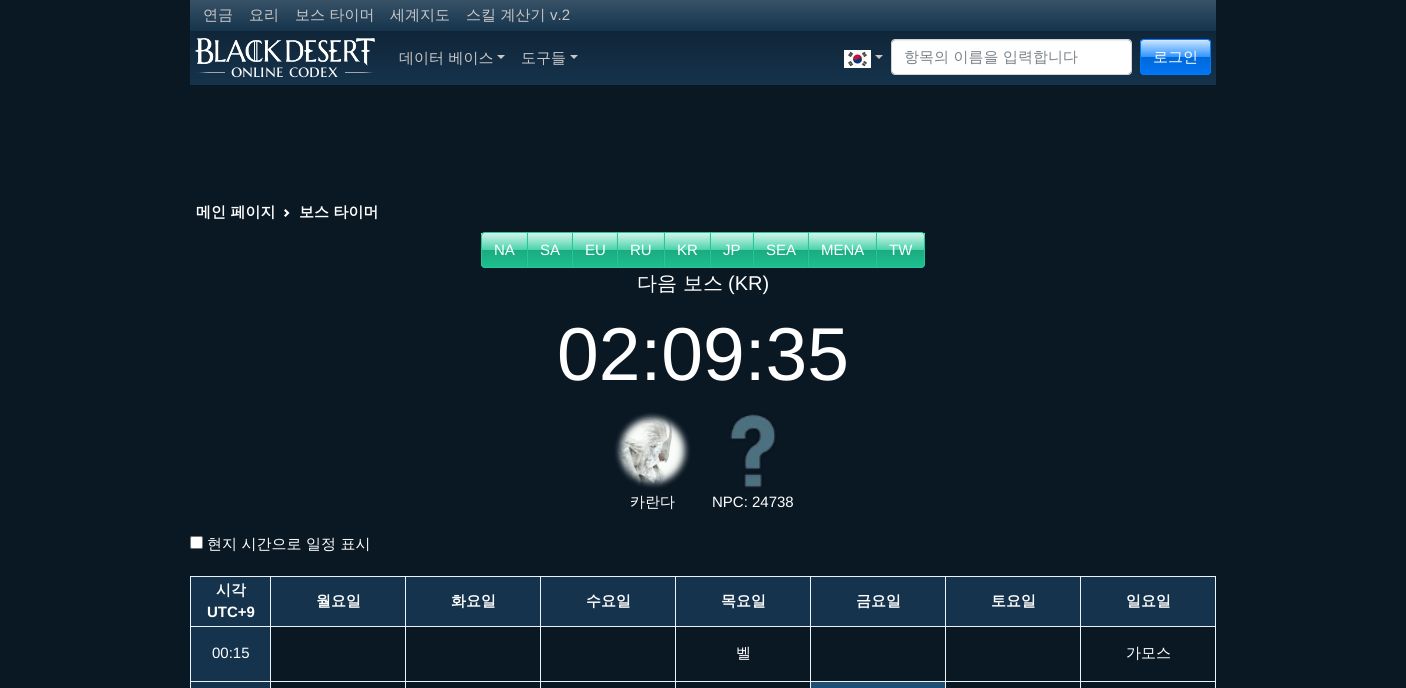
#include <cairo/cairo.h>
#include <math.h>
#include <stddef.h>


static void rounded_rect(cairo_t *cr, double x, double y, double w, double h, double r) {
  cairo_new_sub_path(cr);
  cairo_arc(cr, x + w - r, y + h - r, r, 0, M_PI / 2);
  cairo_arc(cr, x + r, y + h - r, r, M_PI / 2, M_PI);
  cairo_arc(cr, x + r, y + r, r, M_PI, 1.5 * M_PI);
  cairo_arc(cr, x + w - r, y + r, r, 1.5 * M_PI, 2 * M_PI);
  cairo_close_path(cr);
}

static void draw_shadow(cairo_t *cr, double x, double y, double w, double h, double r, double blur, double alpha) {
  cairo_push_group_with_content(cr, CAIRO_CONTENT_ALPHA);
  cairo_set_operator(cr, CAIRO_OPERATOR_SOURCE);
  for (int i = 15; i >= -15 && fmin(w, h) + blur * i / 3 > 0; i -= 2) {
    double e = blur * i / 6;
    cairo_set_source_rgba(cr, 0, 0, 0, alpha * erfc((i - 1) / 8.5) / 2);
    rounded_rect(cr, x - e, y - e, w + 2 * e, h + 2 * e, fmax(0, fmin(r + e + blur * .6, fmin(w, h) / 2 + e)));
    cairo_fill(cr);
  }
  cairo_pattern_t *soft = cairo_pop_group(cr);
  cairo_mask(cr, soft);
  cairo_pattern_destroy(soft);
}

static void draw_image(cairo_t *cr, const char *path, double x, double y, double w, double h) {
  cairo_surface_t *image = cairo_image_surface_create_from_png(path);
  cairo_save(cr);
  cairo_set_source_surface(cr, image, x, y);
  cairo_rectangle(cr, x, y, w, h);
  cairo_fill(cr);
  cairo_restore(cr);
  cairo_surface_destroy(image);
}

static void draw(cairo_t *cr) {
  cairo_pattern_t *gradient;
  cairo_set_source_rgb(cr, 10 / 255.0, 24 / 255.0, 36 / 255.0);
  cairo_paint(cr);
  gradient = cairo_pattern_create_linear(703, 0, 703, 31);
  cairo_pattern_add_color_stop_rgba(gradient, 0, 56 / 255.0, 82 / 255.0, 103 / 255.0, 1);
  cairo_pattern_add_color_stop_rgba(gradient, 1, 21 / 255.0, 51 / 255.0, 76 / 255.0, 1);
  cairo_set_source(cr, gradient);
  cairo_pattern_destroy(gradient);
  cairo_rectangle(cr, 190, 0, 1026, 31);
  cairo_fill(cr);
  gradient = cairo_pattern_create_linear(703, 31, 703, 85);
  cairo_pattern_add_color_stop_rgba(gradient, 0, 16 / 255.0, 37 / 255.0, 56 / 255.0, 1);
  cairo_pattern_add_color_stop_rgba(gradient, 1, 21 / 255.0, 51 / 255.0, 76 / 255.0, 1);
  cairo_set_source(cr, gradient);
  cairo_pattern_destroy(gradient);
  cairo_rectangle(cr, 190, 31, 1026, 54);
  cairo_fill(cr);
  draw_image(cr, "images/1.png", 195, 38, 180, 40);
  cairo_set_source_rgb(cr, 200 / 255.0, 200 / 255.0, 200 / 255.0);
  cairo_new_path(cr);
  cairo_move_to(cr, 497, 55);
  cairo_line_to(cr, 505, 55);
  cairo_line_to(cr, 501, 59);
  cairo_close_path(cr);
  cairo_fill(cr);
  cairo_new_path(cr);
  cairo_move_to(cr, 570, 55);
  cairo_line_to(cr, 578, 55);
  cairo_line_to(cr, 574, 59);
  cairo_close_path(cr);
  cairo_fill(cr);
  draw_image(cr, "images/2.png", 844, 50, 27, 18);
  cairo_new_path(cr);
  cairo_move_to(cr, 875, 55);
  cairo_line_to(cr, 883, 55);
  cairo_line_to(cr, 879, 59);
  cairo_close_path(cr);
  cairo_fill(cr);
  cairo_set_source_rgb(cr, 1, 1, 1);
  rounded_rect(cr, 892, 40, 239, 34, 3);
  cairo_fill(cr);
  cairo_set_source_rgba(cr, 0, 0, 0, 0.07);
  cairo_new_path(cr);
  cairo_move_to(cr, 895, 41);
  cairo_line_to(cr, 1129, 41);
  cairo_line_to(cr, 1131, 42);
  cairo_line_to(cr, 1131, 44);
  cairo_curve_to(cr, 1131, 42, 1130, 40, 1128, 40);
  cairo_line_to(cr, 895, 40);
  cairo_curve_to(cr, 893, 40, 892, 42, 892, 44);
  cairo_curve_to(cr, 892, 42, 893, 41, 895, 41);
  cairo_close_path(cr);
  cairo_fill(cr);
  rounded_rect(cr, 891.5, 39.5, 240, 35, 3.5);
  cairo_set_source_rgb(cr, 206 / 255.0, 212 / 255.0, 218 / 255.0);
  cairo_set_line_width(cr, 1);
  cairo_stroke(cr);
  cairo_set_source_rgb(cr, 0, 123 / 255.0, 1);
  rounded_rect(cr, 1140, 39, 71, 36, 4);
  cairo_fill(cr);
  cairo_save(cr);
  rounded_rect(cr, 1140, 39, 71, 36, 4);
  cairo_clip(cr);
  gradient = cairo_pattern_create_linear(1176, 40, 1176, 74);
  cairo_pattern_add_color_stop_rgba(gradient, 0, 1, 1, 1, 0.8);
  cairo_pattern_add_color_stop_rgba(gradient, 0.49, 1, 1, 1, 0.2);
  cairo_pattern_add_color_stop_rgba(gradient, 0.51, 0, 0, 0, 0.15);
  cairo_pattern_add_color_stop_rgba(gradient, 1, 0, 0, 0, 0.05);
  cairo_set_source(cr, gradient);
  cairo_pattern_destroy(gradient);
  cairo_rectangle(cr, 1140, 40, 71, 34);
  cairo_fill(cr);
  cairo_restore(cr);
  cairo_set_source_rgba(cr, 1, 1, 1, 0.15);
  cairo_new_path(cr);
  cairo_move_to(cr, 1144, 41);
  cairo_line_to(cr, 1207, 41);
  cairo_curve_to(cr, 1209, 41, 1210, 42, 1210, 44);
  cairo_curve_to(cr, 1210, 37, 1201, 40, 1196, 40);
  cairo_line_to(cr, 1154, 40);
  cairo_curve_to(cr, 1150, 40, 1141, 37, 1141, 44);
  cairo_curve_to(cr, 1141, 42, 1142, 41, 1144, 41);
  cairo_close_path(cr);
  cairo_fill(cr);
  rounded_rect(cr, 1140.5, 39.5, 70, 35, 3.5);
  cairo_set_source_rgb(cr, 0, 123 / 255.0, 1);
  cairo_stroke(cr);
  draw_image(cr, "images/3.png", 284, 209, 6, 8);
  cairo_set_source_rgb(cr, 32 / 255.0, 201 / 255.0, 151 / 255.0);
  cairo_new_path(cr);
  cairo_move_to(cr, 485, 232);
  cairo_line_to(cr, 528, 232);
  cairo_line_to(cr, 528, 268);
  cairo_line_to(cr, 485, 268);
  cairo_curve_to(cr, 483, 268, 481, 266, 481, 264);
  cairo_line_to(cr, 481, 236);
  cairo_curve_to(cr, 481, 234, 483, 232, 485, 232);
  cairo_close_path(cr);
  cairo_fill(cr);
  gradient = cairo_pattern_create_linear(505, 233, 505, 267);
  cairo_pattern_add_color_stop_rgba(gradient, 0, 1, 1, 1, 0.8);
  cairo_pattern_add_color_stop_rgba(gradient, 0.49, 1, 1, 1, 0.2);
  cairo_pattern_add_color_stop_rgba(gradient, 0.51, 0, 0, 0, 0.15);
  cairo_pattern_add_color_stop_rgba(gradient, 1, 0, 0, 0, 0.05);
  cairo_set_source(cr, gradient);
  cairo_pattern_destroy(gradient);
  cairo_rectangle(cr, 481, 233, 46, 34);
  cairo_fill(cr);
  cairo_set_source_rgba(cr, 1, 1, 1, 0.15);
  cairo_new_path(cr);
  cairo_move_to(cr, 485, 234);
  cairo_line_to(cr, 527, 234);
  cairo_line_to(cr, 527, 233);
  cairo_line_to(cr, 485, 233);
  cairo_curve_to(cr, 483, 233, 482, 234, 482, 236);
  cairo_line_to(cr, 482, 237);
  cairo_curve_to(cr, 482, 235, 483, 234, 485, 234);
  cairo_close_path(cr);
  cairo_fill(cr);
  cairo_new_path(cr);
  cairo_move_to(cr, 485, 232.5);
  cairo_line_to(cr, 527.5, 232.5);
  cairo_line_to(cr, 527.5, 267.5);
  cairo_line_to(cr, 485, 267.5);
  cairo_curve_to(cr, 483, 267.5, 481.5, 266, 481.5, 264);
  cairo_line_to(cr, 481.5, 236);
  cairo_curve_to(cr, 481.5, 234, 483, 232.5, 485, 232.5);
  cairo_close_path(cr);
  cairo_set_source_rgb(cr, 32 / 255.0, 201 / 255.0, 151 / 255.0);
  cairo_stroke(cr);
  cairo_set_source_rgb(cr, 0, 0, 0);
  draw_shadow(cr, 527, 233, 46, 36, 0, 0.5, 0.07);
  gradient = cairo_pattern_create_linear(550, 233, 550, 267);
  cairo_pattern_add_color_stop_rgba(gradient, 0, 210 / 255.0, 244 / 255.0, 234 / 255.0, 1);
  cairo_pattern_add_color_stop_rgba(gradient, 0.49, 77 / 255.0, 212 / 255.0, 172 / 255.0, 1);
  cairo_pattern_add_color_stop_rgba(gradient, 0.51, 27 / 255.0, 171 / 255.0, 128 / 255.0, 1);
  cairo_pattern_add_color_stop_rgba(gradient, 1, 30 / 255.0, 191 / 255.0, 143 / 255.0, 1);
  cairo_set_source(cr, gradient);
  cairo_pattern_destroy(gradient);
  cairo_rectangle(cr, 528, 234, 44, 33);
  cairo_fill(cr);
  cairo_set_source_rgb(cr, 213 / 255.0, 245 / 255.0, 235 / 255.0);
  cairo_rectangle(cr, 528, 233, 44, 1);
  cairo_fill(cr);
  cairo_rectangle(cr, 527.5, 232.5, 45, 35);
  cairo_set_source_rgb(cr, 32 / 255.0, 201 / 255.0, 151 / 255.0);
  cairo_stroke(cr);
  cairo_set_source_rgb(cr, 0, 0, 0);
  draw_shadow(cr, 572, 233, 46, 36, 0, 0.5, 0.07);
  gradient = cairo_pattern_create_linear(595, 233, 595, 267);
  cairo_pattern_add_color_stop_rgba(gradient, 0, 210 / 255.0, 244 / 255.0, 234 / 255.0, 1);
  cairo_pattern_add_color_stop_rgba(gradient, 0.49, 77 / 255.0, 212 / 255.0, 172 / 255.0, 1);
  cairo_pattern_add_color_stop_rgba(gradient, 0.51, 27 / 255.0, 171 / 255.0, 128 / 255.0, 1);
  cairo_pattern_add_color_stop_rgba(gradient, 1, 30 / 255.0, 191 / 255.0, 143 / 255.0, 1);
  cairo_set_source(cr, gradient);
  cairo_pattern_destroy(gradient);
  cairo_rectangle(cr, 573, 234, 44, 33);
  cairo_fill(cr);
  cairo_set_source_rgb(cr, 213 / 255.0, 245 / 255.0, 235 / 255.0);
  cairo_rectangle(cr, 573, 233, 44, 1);
  cairo_fill(cr);
  cairo_rectangle(cr, 572.5, 232.5, 45, 35);
  cairo_set_source_rgb(cr, 32 / 255.0, 201 / 255.0, 151 / 255.0);
  cairo_stroke(cr);
  cairo_set_source_rgb(cr, 0, 0, 0);
  draw_shadow(cr, 617, 233, 48, 36, 0, 0.5, 0.07);
  gradient = cairo_pattern_create_linear(641, 233, 641, 267);
  cairo_pattern_add_color_stop_rgba(gradient, 0, 210 / 255.0, 244 / 255.0, 234 / 255.0, 1);
  cairo_pattern_add_color_stop_rgba(gradient, 0.49, 77 / 255.0, 212 / 255.0, 172 / 255.0, 1);
  cairo_pattern_add_color_stop_rgba(gradient, 0.51, 27 / 255.0, 171 / 255.0, 128 / 255.0, 1);
  cairo_pattern_add_color_stop_rgba(gradient, 1, 30 / 255.0, 191 / 255.0, 143 / 255.0, 1);
  cairo_set_source(cr, gradient);
  cairo_pattern_destroy(gradient);
  cairo_rectangle(cr, 618, 234, 46, 33);
  cairo_fill(cr);
  cairo_set_source_rgb(cr, 213 / 255.0, 245 / 255.0, 235 / 255.0);
  cairo_rectangle(cr, 618, 233, 46, 1);
  cairo_fill(cr);
  cairo_rectangle(cr, 617.5, 232.5, 47, 35);
  cairo_set_source_rgb(cr, 32 / 255.0, 201 / 255.0, 151 / 255.0);
  cairo_stroke(cr);
  cairo_set_source_rgb(cr, 0, 0, 0);
  draw_shadow(cr, 664, 233, 47, 36, 0, 0.5, 0.07);
  gradient = cairo_pattern_create_linear(688, 233, 688, 267);
  cairo_pattern_add_color_stop_rgba(gradient, 0, 210 / 255.0, 244 / 255.0, 234 / 255.0, 1);
  cairo_pattern_add_color_stop_rgba(gradient, 0.49, 77 / 255.0, 212 / 255.0, 172 / 255.0, 1);
  cairo_pattern_add_color_stop_rgba(gradient, 0.51, 27 / 255.0, 171 / 255.0, 128 / 255.0, 1);
  cairo_pattern_add_color_stop_rgba(gradient, 1, 30 / 255.0, 191 / 255.0, 143 / 255.0, 1);
  cairo_set_source(cr, gradient);
  cairo_pattern_destroy(gradient);
  cairo_rectangle(cr, 665, 234, 45, 33);
  cairo_fill(cr);
  cairo_set_source_rgb(cr, 213 / 255.0, 245 / 255.0, 235 / 255.0);
  cairo_rectangle(cr, 665, 233, 45, 1);
  cairo_fill(cr);
  cairo_rectangle(cr, 664.5, 232.5, 46, 35);
  cairo_set_source_rgb(cr, 32 / 255.0, 201 / 255.0, 151 / 255.0);
  cairo_stroke(cr);
  cairo_set_source_rgb(cr, 0, 0, 0);
  draw_shadow(cr, 710, 233, 44, 36, 0, 0.5, 0.07);
  gradient = cairo_pattern_create_linear(732, 233, 732, 267);
  cairo_pattern_add_color_stop_rgba(gradient, 0, 210 / 255.0, 244 / 255.0, 234 / 255.0, 1);
  cairo_pattern_add_color_stop_rgba(gradient, 0.49, 77 / 255.0, 212 / 255.0, 172 / 255.0, 1);
  cairo_pattern_add_color_stop_rgba(gradient, 0.51, 27 / 255.0, 171 / 255.0, 128 / 255.0, 1);
  cairo_pattern_add_color_stop_rgba(gradient, 1, 30 / 255.0, 191 / 255.0, 143 / 255.0, 1);
  cairo_set_source(cr, gradient);
  cairo_pattern_destroy(gradient);
  cairo_rectangle(cr, 711, 234, 42, 33);
  cairo_fill(cr);
  cairo_set_source_rgb(cr, 213 / 255.0, 245 / 255.0, 235 / 255.0);
  cairo_rectangle(cr, 711, 233, 42, 1);
  cairo_fill(cr);
  cairo_rectangle(cr, 710.5, 232.5, 43, 35);
  cairo_set_source_rgb(cr, 32 / 255.0, 201 / 255.0, 151 / 255.0);
  cairo_stroke(cr);
  cairo_set_source_rgb(cr, 0, 0, 0);
  draw_shadow(cr, 753, 233, 56, 36, 0, 0.5, 0.07);
  gradient = cairo_pattern_create_linear(781, 233, 781, 267);
  cairo_pattern_add_color_stop_rgba(gradient, 0, 210 / 255.0, 244 / 255.0, 234 / 255.0, 1);
  cairo_pattern_add_color_stop_rgba(gradient, 0.49, 77 / 255.0, 212 / 255.0, 172 / 255.0, 1);
  cairo_pattern_add_color_stop_rgba(gradient, 0.51, 27 / 255.0, 171 / 255.0, 128 / 255.0, 1);
  cairo_pattern_add_color_stop_rgba(gradient, 1, 30 / 255.0, 191 / 255.0, 143 / 255.0, 1);
  cairo_set_source(cr, gradient);
  cairo_pattern_destroy(gradient);
  cairo_rectangle(cr, 754, 234, 54, 33);
  cairo_fill(cr);
  cairo_set_source_rgb(cr, 213 / 255.0, 245 / 255.0, 235 / 255.0);
  cairo_rectangle(cr, 754, 233, 54, 1);
  cairo_fill(cr);
  cairo_rectangle(cr, 753.5, 232.5, 55, 35);
  cairo_set_source_rgb(cr, 32 / 255.0, 201 / 255.0, 151 / 255.0);
  cairo_stroke(cr);
  cairo_set_source_rgb(cr, 0, 0, 0);
  draw_shadow(cr, 808, 233, 69, 36, 0, 0.5, 0.07);
  gradient = cairo_pattern_create_linear(843, 233, 843, 267);
  cairo_pattern_add_color_stop_rgba(gradient, 0, 210 / 255.0, 244 / 255.0, 234 / 255.0, 1);
  cairo_pattern_add_color_stop_rgba(gradient, 0.49, 77 / 255.0, 212 / 255.0, 172 / 255.0, 1);
  cairo_pattern_add_color_stop_rgba(gradient, 0.51, 27 / 255.0, 171 / 255.0, 128 / 255.0, 1);
  cairo_pattern_add_color_stop_rgba(gradient, 1, 30 / 255.0, 191 / 255.0, 143 / 255.0, 1);
  cairo_set_source(cr, gradient);
  cairo_pattern_destroy(gradient);
  cairo_rectangle(cr, 809, 234, 67, 33);
  cairo_fill(cr);
  cairo_set_source_rgb(cr, 213 / 255.0, 245 / 255.0, 235 / 255.0);
  cairo_rectangle(cr, 809, 233, 67, 1);
  cairo_fill(cr);
  cairo_rectangle(cr, 808.5, 232.5, 68, 35);
  cairo_set_source_rgb(cr, 32 / 255.0, 201 / 255.0, 151 / 255.0);
  cairo_stroke(cr);
  cairo_set_source_rgb(cr, 0, 0, 0);
  draw_shadow(cr, 876, 233, 49, 36, 4, 0.5, 0.07);
  cairo_set_source_rgb(cr, 32 / 255.0, 201 / 255.0, 151 / 255.0);
  cairo_new_path(cr);
  cairo_move_to(cr, 876, 232);
  cairo_line_to(cr, 921, 232);
  cairo_curve_to(cr, 923, 232, 925, 234, 925, 236);
  cairo_line_to(cr, 925, 264);
  cairo_curve_to(cr, 925, 266, 923, 268, 921, 268);
  cairo_line_to(cr, 876, 268);
  cairo_close_path(cr);
  cairo_fill(cr);
  gradient = cairo_pattern_create_linear(901, 233, 901, 267);
  cairo_pattern_add_color_stop_rgba(gradient, 0, 1, 1, 1, 0.8);
  cairo_pattern_add_color_stop_rgba(gradient, 0.49, 1, 1, 1, 0.2);
  cairo_pattern_add_color_stop_rgba(gradient, 0.51, 0, 0, 0, 0.15);
  cairo_pattern_add_color_stop_rgba(gradient, 1, 0, 0, 0, 0.05);
  cairo_set_source(cr, gradient);
  cairo_pattern_destroy(gradient);
  cairo_rectangle(cr, 877, 233, 48, 34);
  cairo_fill(cr);
  cairo_set_source_rgba(cr, 1, 1, 1, 0.15);
  cairo_new_path(cr);
  cairo_move_to(cr, 877, 234);
  cairo_line_to(cr, 921, 234);
  cairo_curve_to(cr, 923, 234, 924, 235, 924, 237);
  cairo_line_to(cr, 924, 236);
  cairo_curve_to(cr, 924, 234, 923, 233, 921, 233);
  cairo_line_to(cr, 877, 233);
  cairo_close_path(cr);
  cairo_fill(cr);
  cairo_new_path(cr);
  cairo_move_to(cr, 876.5, 232.5);
  cairo_line_to(cr, 921, 232.5);
  cairo_curve_to(cr, 923, 232.5, 924.5, 234, 924.5, 236);
  cairo_line_to(cr, 924.5, 264);
  cairo_curve_to(cr, 924.5, 266, 923, 267.5, 921, 267.5);
  cairo_line_to(cr, 876.5, 267.5);
  cairo_close_path(cr);
  cairo_set_source_rgb(cr, 32 / 255.0, 201 / 255.0, 151 / 255.0);
  cairo_stroke(cr);
  draw_image(cr, "images/4.png", 614, 412, 77, 77);
  draw_image(cr, "images/5.png", 730, 413, 47, 76);
  cairo_set_source_rgb(cr, 1, 1, 1);
  rounded_rect(cr, 190.5, 536.5, 12, 12, 1.5);
  cairo_fill_preserve(cr);
  cairo_set_source_rgb(cr, 118 / 255.0, 118 / 255.0, 118 / 255.0);
  cairo_stroke(cr);
  cairo_set_source_rgb(cr, 234 / 255.0, 243 / 255.0, 252 / 255.0);
  cairo_rectangle(cr, 190, 576, 1026, 1);
  cairo_fill(cr);
  cairo_rectangle(cr, 1215, 576, 1, 112);
  cairo_fill(cr);
  cairo_rectangle(cr, 190, 576, 1, 112);
  cairo_fill(cr);
  cairo_set_source_rgb(cr, 21 / 255.0, 51 / 255.0, 76 / 255.0);
  cairo_rectangle(cr, 191, 577, 79, 49);
  cairo_fill(cr);
  cairo_rectangle(cr, 271, 577, 134, 49);
  cairo_fill(cr);
  cairo_set_source_rgb(cr, 234 / 255.0, 243 / 255.0, 252 / 255.0);
  cairo_rectangle(cr, 1080, 626, 136, 1);
  cairo_fill(cr);
  cairo_rectangle(cr, 1080, 681, 136, 1);
  cairo_fill(cr);
  cairo_rectangle(cr, 1080, 681, 1, 7);
  cairo_fill(cr);
  cairo_rectangle(cr, 945, 681, 136, 1);
  cairo_fill(cr);
  cairo_rectangle(cr, 1080, 626, 1, 56);
  cairo_fill(cr);
  cairo_rectangle(cr, 945, 626, 136, 1);
  cairo_fill(cr);
  cairo_set_source_rgb(cr, 32 / 255.0, 77 / 255.0, 116 / 255.0);
  cairo_rectangle(cr, 811, 682, 135, 6);
  cairo_fill(cr);
  cairo_set_source_rgb(cr, 234 / 255.0, 243 / 255.0, 252 / 255.0);
  cairo_rectangle(cr, 945, 681, 1, 7);
  cairo_fill(cr);
  cairo_rectangle(cr, 810, 681, 136, 1);
  cairo_fill(cr);
  cairo_rectangle(cr, 945, 626, 1, 56);
  cairo_fill(cr);
  cairo_rectangle(cr, 810, 626, 136, 1);
  cairo_fill(cr);
  cairo_rectangle(cr, 810, 681, 1, 7);
  cairo_fill(cr);
  cairo_rectangle(cr, 675, 681, 136, 1);
  cairo_fill(cr);
  cairo_rectangle(cr, 810, 626, 1, 56);
  cairo_fill(cr);
  cairo_rectangle(cr, 675, 626, 136, 1);
  cairo_fill(cr);
  cairo_rectangle(cr, 675, 681, 1, 7);
  cairo_fill(cr);
  cairo_rectangle(cr, 540, 681, 136, 1);
  cairo_fill(cr);
  cairo_rectangle(cr, 675, 626, 1, 56);
  cairo_fill(cr);
  cairo_rectangle(cr, 540, 626, 136, 1);
  cairo_fill(cr);
  cairo_rectangle(cr, 540, 681, 1, 7);
  cairo_fill(cr);
  cairo_rectangle(cr, 405, 681, 136, 1);
  cairo_fill(cr);
  cairo_rectangle(cr, 540, 626, 1, 56);
  cairo_fill(cr);
  cairo_rectangle(cr, 405, 626, 136, 1);
  cairo_fill(cr);
  cairo_rectangle(cr, 405, 681, 1, 7);
  cairo_fill(cr);
  cairo_rectangle(cr, 270, 681, 136, 1);
  cairo_fill(cr);
  cairo_rectangle(cr, 405, 626, 1, 56);
  cairo_fill(cr);
  cairo_rectangle(cr, 270, 626, 136, 1);
  cairo_fill(cr);
  cairo_set_source_rgb(cr, 21 / 255.0, 51 / 255.0, 76 / 255.0);
  cairo_rectangle(cr, 191, 682, 80, 6);
  cairo_fill(cr);
  cairo_set_source_rgb(cr, 234 / 255.0, 243 / 255.0, 252 / 255.0);
  cairo_rectangle(cr, 270, 681, 1, 7);
  cairo_fill(cr);
  cairo_rectangle(cr, 190, 681, 81, 1);
  cairo_fill(cr);
  cairo_rectangle(cr, 270, 626, 1, 56);
  cairo_fill(cr);
  cairo_rectangle(cr, 190, 626, 81, 1);
  cairo_fill(cr);
  cairo_rectangle(cr, 270, 576, 1, 51);
  cairo_fill(cr);
  cairo_set_source_rgb(cr, 21 / 255.0, 51 / 255.0, 76 / 255.0);
  cairo_rectangle(cr, 406, 577, 134, 49);
  cairo_fill(cr);
  cairo_set_source_rgb(cr, 234 / 255.0, 243 / 255.0, 252 / 255.0);
  cairo_rectangle(cr, 405, 576, 1, 51);
  cairo_fill(cr);
  cairo_set_source_rgb(cr, 21 / 255.0, 51 / 255.0, 76 / 255.0);
  cairo_rectangle(cr, 541, 577, 134, 49);
  cairo_fill(cr);
  cairo_set_source_rgb(cr, 234 / 255.0, 243 / 255.0, 252 / 255.0);
  cairo_rectangle(cr, 540, 576, 1, 51);
  cairo_fill(cr);
  cairo_set_source_rgb(cr, 21 / 255.0, 51 / 255.0, 76 / 255.0);
  cairo_rectangle(cr, 676, 577, 134, 49);
  cairo_fill(cr);
  cairo_set_source_rgb(cr, 234 / 255.0, 243 / 255.0, 252 / 255.0);
  cairo_rectangle(cr, 675, 576, 1, 51);
  cairo_fill(cr);
  cairo_set_source_rgb(cr, 21 / 255.0, 51 / 255.0, 76 / 255.0);
  cairo_rectangle(cr, 811, 577, 134, 49);
  cairo_fill(cr);
  cairo_set_source_rgb(cr, 234 / 255.0, 243 / 255.0, 252 / 255.0);
  cairo_rectangle(cr, 810, 576, 1, 51);
  cairo_fill(cr);
  cairo_set_source_rgb(cr, 21 / 255.0, 51 / 255.0, 76 / 255.0);
  cairo_rectangle(cr, 946, 577, 134, 49);
  cairo_fill(cr);
  cairo_set_source_rgb(cr, 234 / 255.0, 243 / 255.0, 252 / 255.0);
  cairo_rectangle(cr, 945, 576, 1, 51);
  cairo_fill(cr);
  cairo_set_source_rgb(cr, 21 / 255.0, 51 / 255.0, 76 / 255.0);
  cairo_rectangle(cr, 1081, 577, 134, 49);
  cairo_fill(cr);
  cairo_set_source_rgb(cr, 234 / 255.0, 243 / 255.0, 252 / 255.0);
  cairo_rectangle(cr, 1080, 576, 1, 51);
  cairo_fill(cr);
  cairo_set_source_rgb(cr, 21 / 255.0, 51 / 255.0, 76 / 255.0);
  cairo_rectangle(cr, 191, 627, 79, 54);
  cairo_fill(cr);
  cairo_select_font_face(cr, "WenQuanYi Zen Hei Medium", CAIRO_FONT_SLANT_NORMAL, CAIRO_FONT_WEIGHT_NORMAL);
  cairo_set_font_size(cr, 15);
  cairo_set_source_rgb(cr, 200 / 255.0, 200 / 255.0, 200 / 255.0);
  cairo_move_to(cr, 203, 20);
  cairo_show_text(cr, "연금");
  cairo_move_to(cr, 249, 20);
  cairo_show_text(cr, "요리");
  cairo_move_to(cr, 295, 20);
  cairo_show_text(cr, "보스 타이머");
  cairo_move_to(cr, 390, 20);
  cairo_show_text(cr, "세계지도");
  cairo_move_to(cr, 466, 20);
  cairo_show_text(cr, "스킬 계산기");
  cairo_select_font_face(cr, "Liberation Sans", CAIRO_FONT_SLANT_NORMAL, CAIRO_FONT_WEIGHT_NORMAL);
  cairo_move_to(cr, 550, 20);
  cairo_show_text(cr, "v.2");
  cairo_select_font_face(cr, "WenQuanYi Zen Hei Medium", CAIRO_FONT_SLANT_NORMAL, CAIRO_FONT_WEIGHT_NORMAL);
  cairo_move_to(cr, 399, 63);
  cairo_show_text(cr, "데이터 베이스");
  cairo_move_to(cr, 521, 63);
  cairo_show_text(cr, "도구들");
  cairo_set_source_rgb(cr, 122 / 255.0, 130 / 255.0, 136 / 255.0);
  cairo_move_to(cr, 904, 62);
  cairo_show_text(cr, "항목의 이름을 입력합니다");
  cairo_set_source_rgb(cr, 1, 1, 1);
  cairo_move_to(cr, 1153, 62);
  cairo_show_text(cr, "로그인");
  cairo_select_font_face(cr, "WenQuanYi Zen Hei", CAIRO_FONT_SLANT_NORMAL, CAIRO_FONT_WEIGHT_BOLD);
  cairo_move_to(cr, 196, 217);
  cairo_show_text(cr, "메인 페이지");
  cairo_move_to(cr, 299, 217);
  cairo_show_text(cr, "보스 타이머");
  cairo_select_font_face(cr, "Liberation Sans", CAIRO_FONT_SLANT_NORMAL, CAIRO_FONT_WEIGHT_NORMAL);
  cairo_move_to(cr, 494, 255);
  cairo_show_text(cr, "NA");
  cairo_move_to(cr, 540, 255);
  cairo_show_text(cr, "SA");
  cairo_move_to(cr, 585, 255);
  cairo_show_text(cr, "EU");
  cairo_move_to(cr, 630, 255);
  cairo_show_text(cr, "RU");
  cairo_move_to(cr, 677, 255);
  cairo_show_text(cr, "KR");
  cairo_move_to(cr, 723, 255);
  cairo_show_text(cr, "JP");
  cairo_move_to(cr, 766, 255);
  cairo_show_text(cr, "SEA");
  cairo_move_to(cr, 821, 255);
  cairo_show_text(cr, "MENA");
  cairo_move_to(cr, 889, 255);
  cairo_show_text(cr, "TW");
  cairo_select_font_face(cr, "WenQuanYi Zen Hei Medium", CAIRO_FONT_SLANT_NORMAL, CAIRO_FONT_WEIGHT_NORMAL);
  cairo_set_font_size(cr, 20);
  cairo_move_to(cr, 637, 290);
  cairo_show_text(cr, "다음 보스");
  cairo_select_font_face(cr, "Liberation Sans", CAIRO_FONT_SLANT_NORMAL, CAIRO_FONT_WEIGHT_NORMAL);
  cairo_move_to(cr, 728, 290);
  cairo_show_text(cr, "(KR)");
  cairo_set_font_size(cr, 75);
  cairo_move_to(cr, 557, 380);
  cairo_show_text(cr, "02:09:35");
  cairo_select_font_face(cr, "WenQuanYi Zen Hei Medium", CAIRO_FONT_SLANT_NORMAL, CAIRO_FONT_WEIGHT_NORMAL);
  cairo_set_font_size(cr, 15);
  cairo_move_to(cr, 630, 507);
  cairo_show_text(cr, "카란다");
  cairo_select_font_face(cr, "Liberation Sans", CAIRO_FONT_SLANT_NORMAL, CAIRO_FONT_WEIGHT_NORMAL);
  cairo_move_to(cr, 712, 507);
  cairo_show_text(cr, "NPC: 24738");
  cairo_select_font_face(cr, "WenQuanYi Zen Hei Medium", CAIRO_FONT_SLANT_NORMAL, CAIRO_FONT_WEIGHT_NORMAL);
  cairo_move_to(cr, 207, 549);
  cairo_show_text(cr, "현지 시간으로 일정 표시");
  cairo_select_font_face(cr, "WenQuanYi Zen Hei", CAIRO_FONT_SLANT_NORMAL, CAIRO_FONT_WEIGHT_BOLD);
  cairo_move_to(cr, 216, 595);
  cairo_show_text(cr, "시각");
  cairo_select_font_face(cr, "Liberation Sans", CAIRO_FONT_SLANT_NORMAL, CAIRO_FONT_WEIGHT_BOLD);
  cairo_move_to(cr, 207, 617);
  cairo_show_text(cr, "UTC+9");
  cairo_select_font_face(cr, "WenQuanYi Zen Hei", CAIRO_FONT_SLANT_NORMAL, CAIRO_FONT_WEIGHT_BOLD);
  cairo_move_to(cr, 316, 606);
  cairo_show_text(cr, "월요일");
  cairo_move_to(cr, 451, 606);
  cairo_show_text(cr, "화요일");
  cairo_move_to(cr, 586, 606);
  cairo_show_text(cr, "수요일");
  cairo_move_to(cr, 721, 606);
  cairo_show_text(cr, "목요일");
  cairo_move_to(cr, 856, 606);
  cairo_show_text(cr, "금요일");
  cairo_move_to(cr, 991, 606);
  cairo_show_text(cr, "토요일");
  cairo_move_to(cr, 1126, 606);
  cairo_show_text(cr, "일요일");
  cairo_select_font_face(cr, "Liberation Sans", CAIRO_FONT_SLANT_NORMAL, CAIRO_FONT_WEIGHT_NORMAL);
  cairo_move_to(cr, 212, 658);
  cairo_show_text(cr, "00:15");
  cairo_select_font_face(cr, "WenQuanYi Zen Hei Medium", CAIRO_FONT_SLANT_NORMAL, CAIRO_FONT_WEIGHT_NORMAL);
  cairo_move_to(cr, 736, 658);
  cairo_show_text(cr, "벨");
  cairo_move_to(cr, 1126, 658);
  cairo_show_text(cr, "가모스");
}

int main(void) {
  cairo_surface_t *surface = cairo_image_surface_create(CAIRO_FORMAT_RGB24, 1406, 688);
  cairo_t *cr = cairo_create(surface);
  cairo_font_options_t *options = cairo_font_options_create();
  cairo_font_options_set_hint_metrics(options, CAIRO_HINT_METRICS_OFF);
  cairo_font_options_set_hint_style(options, CAIRO_HINT_STYLE_NONE);
  cairo_set_font_options(cr, options);
  cairo_set_miter_limit(cr, 4);
  draw(cr);
  cairo_surface_write_to_png(surface, "out.png");
  cairo_font_options_destroy(options);
  cairo_destroy(cr);
  cairo_surface_destroy(surface);
  return 0;
}
